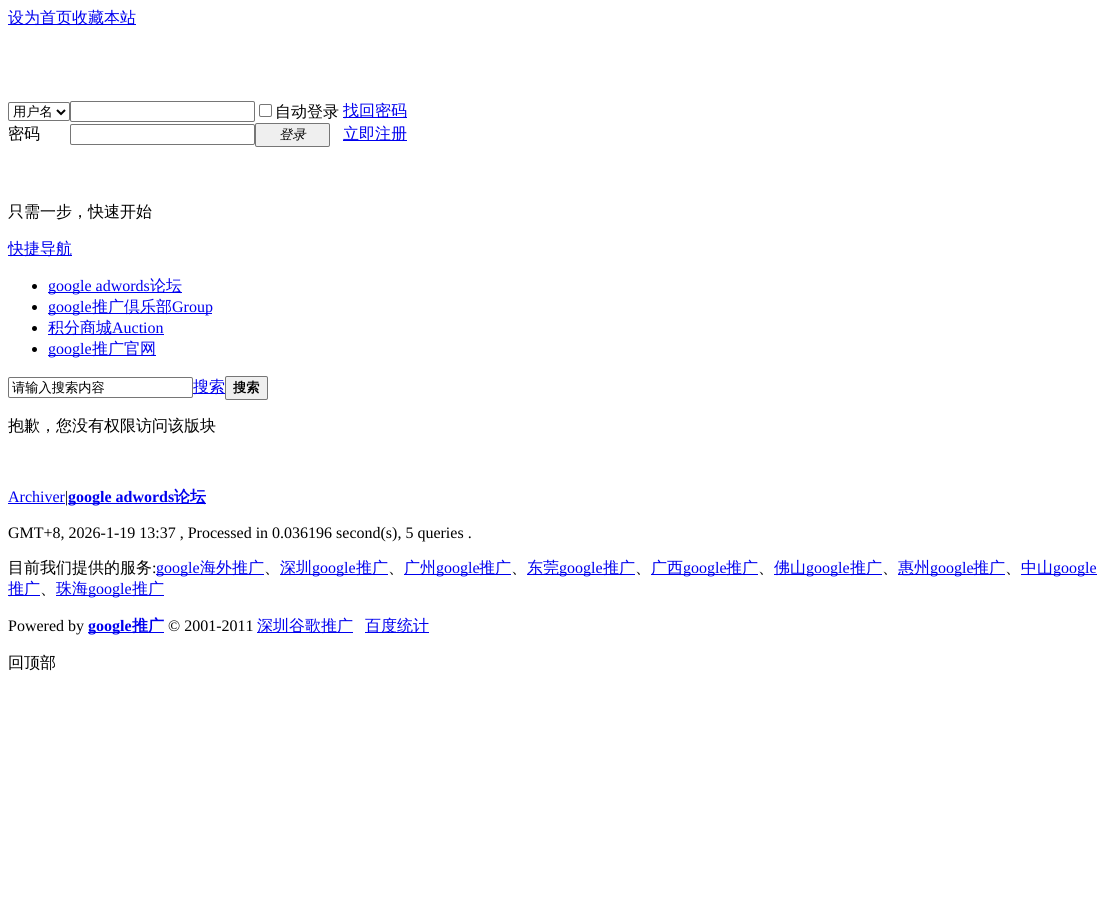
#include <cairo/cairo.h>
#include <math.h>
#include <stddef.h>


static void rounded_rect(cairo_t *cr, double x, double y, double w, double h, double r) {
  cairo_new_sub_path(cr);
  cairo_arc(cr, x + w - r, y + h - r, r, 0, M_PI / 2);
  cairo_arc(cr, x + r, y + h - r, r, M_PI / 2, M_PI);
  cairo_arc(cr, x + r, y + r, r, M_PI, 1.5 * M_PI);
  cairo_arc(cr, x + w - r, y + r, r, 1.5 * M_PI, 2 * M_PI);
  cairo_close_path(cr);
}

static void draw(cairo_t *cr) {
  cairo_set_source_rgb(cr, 1, 1, 1);
  cairo_paint(cr);
  cairo_set_source_rgb(cr, 0, 0, 238 / 255.0);
  cairo_rectangle(cr, 8, 24, 128, 1);
  cairo_fill(cr);
  rounded_rect(cr, 8.5, 102.5, 61, 18, 1.5);
  cairo_set_source_rgb(cr, 118 / 255.0, 118 / 255.0, 118 / 255.0);
  cairo_set_line_width(cr, 1);
  cairo_stroke(cr);
  cairo_new_path(cr);
  cairo_move_to(cr, 57, 110);
  cairo_line_to(cr, 61, 114);
  cairo_line_to(cr, 65, 110);
  cairo_set_source_rgb(cr, 0, 0, 0);
  cairo_set_line_width(cr, 2);
  cairo_stroke(cr);
  rounded_rect(cr, 70.5, 101.5, 184, 20, 1.5);
  cairo_set_source_rgb(cr, 118 / 255.0, 118 / 255.0, 118 / 255.0);
  cairo_set_line_width(cr, 1);
  cairo_stroke(cr);
  rounded_rect(cr, 259.5, 104.5, 12, 12, 1.5);
  cairo_stroke(cr);
  cairo_set_source_rgb(cr, 0, 0, 238 / 255.0);
  cairo_rectangle(cr, 343, 117, 64, 1);
  cairo_fill(cr);
  rounded_rect(cr, 70.5, 124.5, 184, 20, 1.5);
  cairo_set_source_rgb(cr, 118 / 255.0, 118 / 255.0, 118 / 255.0);
  cairo_stroke(cr);
  cairo_set_source_rgb(cr, 239 / 255.0, 239 / 255.0, 239 / 255.0);
  rounded_rect(cr, 255.5, 123.5, 74, 23, 1.5);
  cairo_fill_preserve(cr);
  cairo_set_source_rgb(cr, 118 / 255.0, 118 / 255.0, 118 / 255.0);
  cairo_stroke(cr);
  cairo_set_source_rgb(cr, 0, 0, 238 / 255.0);
  cairo_rectangle(cr, 343, 140, 64, 1);
  cairo_fill(cr);
  cairo_rectangle(cr, 8, 255, 64, 1);
  cairo_fill(cr);
  cairo_set_source_rgb(cr, 0, 0, 0);
  cairo_arc(cr, 34.5, 286.5, 2.5, 0, 2 * M_PI);
  cairo_fill(cr);
  cairo_set_source_rgb(cr, 0, 0, 238 / 255.0);
  cairo_rectangle(cr, 48, 292, 134, 1);
  cairo_fill(cr);
  cairo_set_source_rgb(cr, 0, 0, 0);
  cairo_arc(cr, 34.5, 307.5, 2.5, 0, 2 * M_PI);
  cairo_fill(cr);
  cairo_set_source_rgb(cr, 0, 0, 238 / 255.0);
  cairo_rectangle(cr, 48, 313, 164, 1);
  cairo_fill(cr);
  cairo_set_source_rgb(cr, 0, 0, 0);
  cairo_arc(cr, 34.5, 328.5, 2.5, 0, 2 * M_PI);
  cairo_fill(cr);
  cairo_set_source_rgb(cr, 0, 0, 238 / 255.0);
  cairo_rectangle(cr, 48, 334, 116, 1);
  cairo_fill(cr);
  cairo_set_source_rgb(cr, 0, 0, 0);
  cairo_arc(cr, 34.5, 349.5, 2.5, 0, 2 * M_PI);
  cairo_fill(cr);
  cairo_set_source_rgb(cr, 0, 0, 238 / 255.0);
  cairo_rectangle(cr, 48, 355, 108, 1);
  cairo_fill(cr);
  rounded_rect(cr, 8.5, 377.5, 184, 20, 1.5);
  cairo_set_source_rgb(cr, 118 / 255.0, 118 / 255.0, 118 / 255.0);
  cairo_stroke(cr);
  cairo_set_source_rgb(cr, 0, 0, 238 / 255.0);
  cairo_rectangle(cr, 193, 393, 32, 1);
  cairo_fill(cr);
  cairo_set_source_rgb(cr, 239 / 255.0, 239 / 255.0, 239 / 255.0);
  rounded_rect(cr, 225.5, 376.5, 42, 23, 1.5);
  cairo_fill_preserve(cr);
  cairo_set_source_rgb(cr, 118 / 255.0, 118 / 255.0, 118 / 255.0);
  cairo_stroke(cr);
  cairo_set_source_rgb(cr, 0, 0, 238 / 255.0);
  cairo_rectangle(cr, 8, 503, 57, 1);
  cairo_fill(cr);
  cairo_rectangle(cr, 68, 503, 138, 1);
  cairo_fill(cr);
  cairo_rectangle(cr, 156, 574, 108, 1);
  cairo_fill(cr);
  cairo_rectangle(cr, 280, 574, 108, 1);
  cairo_fill(cr);
  cairo_rectangle(cr, 404, 574, 107, 1);
  cairo_fill(cr);
  cairo_rectangle(cr, 527, 574, 108, 1);
  cairo_fill(cr);
  cairo_rectangle(cr, 651, 574, 107, 1);
  cairo_fill(cr);
  cairo_rectangle(cr, 774, 574, 108, 1);
  cairo_fill(cr);
  cairo_rectangle(cr, 898, 574, 107, 1);
  cairo_fill(cr);
  cairo_rectangle(cr, 1021, 574, 76, 1);
  cairo_fill(cr);
  cairo_rectangle(cr, 8, 595, 32, 1);
  cairo_fill(cr);
  cairo_rectangle(cr, 56, 595, 108, 1);
  cairo_fill(cr);
  cairo_rectangle(cr, 88, 632, 76, 1);
  cairo_fill(cr);
  cairo_rectangle(cr, 257, 632, 96, 1);
  cairo_fill(cr);
  cairo_rectangle(cr, 365, 632, 64, 1);
  cairo_fill(cr);
  cairo_select_font_face(cr, "WenQuanYi Zen Hei Medium", CAIRO_FONT_SLANT_NORMAL, CAIRO_FONT_WEIGHT_NORMAL);
  cairo_set_font_size(cr, 16);
  cairo_move_to(cr, 8, 23);
  cairo_show_text(cr, "设为首页收藏本站");
  cairo_set_font_size(cr, 13.25);
  cairo_set_source_rgb(cr, 0, 0, 0);
  cairo_move_to(cr, 13, 116);
  cairo_show_text(cr, "用户名");
  cairo_set_font_size(cr, 16);
  cairo_move_to(cr, 275, 117);
  cairo_show_text(cr, "自动登录");
  cairo_set_source_rgb(cr, 0, 0, 238 / 255.0);
  cairo_move_to(cr, 343, 116);
  cairo_show_text(cr, "找回密码");
  cairo_set_source_rgb(cr, 0, 0, 0);
  cairo_move_to(cr, 8, 139);
  cairo_show_text(cr, "密码");
  cairo_select_font_face(cr, "WenQuanYi Zen Hei Medium", CAIRO_FONT_SLANT_ITALIC, CAIRO_FONT_WEIGHT_NORMAL);
  cairo_set_font_size(cr, 13.25);
  cairo_move_to(cr, 279, 139);
  cairo_show_text(cr, "登录");
  cairo_select_font_face(cr, "WenQuanYi Zen Hei Medium", CAIRO_FONT_SLANT_NORMAL, CAIRO_FONT_WEIGHT_NORMAL);
  cairo_set_font_size(cr, 16);
  cairo_set_source_rgb(cr, 0, 0, 238 / 255.0);
  cairo_move_to(cr, 343, 139);
  cairo_show_text(cr, "立即注册");
  cairo_set_source_rgb(cr, 0, 0, 0);
  cairo_move_to(cr, 8, 217);
  cairo_show_text(cr, "只需一步，快速开始");
  cairo_set_source_rgb(cr, 0, 0, 238 / 255.0);
  cairo_move_to(cr, 8, 254);
  cairo_show_text(cr, "快捷导航");
  cairo_select_font_face(cr, "Liberation Serif", CAIRO_FONT_SLANT_NORMAL, CAIRO_FONT_WEIGHT_NORMAL);
  cairo_move_to(cr, 48, 291);
  cairo_show_text(cr, "google adwords");
  cairo_select_font_face(cr, "WenQuanYi Zen Hei Medium", CAIRO_FONT_SLANT_NORMAL, CAIRO_FONT_WEIGHT_NORMAL);
  cairo_move_to(cr, 150, 291);
  cairo_show_text(cr, "论坛");
  cairo_select_font_face(cr, "Liberation Serif", CAIRO_FONT_SLANT_NORMAL, CAIRO_FONT_WEIGHT_NORMAL);
  cairo_move_to(cr, 48, 312);
  cairo_show_text(cr, "google");
  cairo_select_font_face(cr, "WenQuanYi Zen Hei Medium", CAIRO_FONT_SLANT_NORMAL, CAIRO_FONT_WEIGHT_NORMAL);
  cairo_move_to(cr, 92, 312);
  cairo_show_text(cr, "推广倶乐部");
  cairo_select_font_face(cr, "Liberation Serif", CAIRO_FONT_SLANT_NORMAL, CAIRO_FONT_WEIGHT_NORMAL);
  cairo_move_to(cr, 172, 312);
  cairo_show_text(cr, "Group");
  cairo_select_font_face(cr, "WenQuanYi Zen Hei Medium", CAIRO_FONT_SLANT_NORMAL, CAIRO_FONT_WEIGHT_NORMAL);
  cairo_move_to(cr, 48, 333);
  cairo_show_text(cr, "积分商城");
  cairo_select_font_face(cr, "Liberation Serif", CAIRO_FONT_SLANT_NORMAL, CAIRO_FONT_WEIGHT_NORMAL);
  cairo_move_to(cr, 112, 333);
  cairo_show_text(cr, "Auction");
  cairo_move_to(cr, 48, 354);
  cairo_show_text(cr, "google");
  cairo_select_font_face(cr, "WenQuanYi Zen Hei Medium", CAIRO_FONT_SLANT_NORMAL, CAIRO_FONT_WEIGHT_NORMAL);
  cairo_move_to(cr, 92, 354);
  cairo_show_text(cr, "推广官网");
  cairo_set_font_size(cr, 13.25);
  cairo_set_source_rgb(cr, 0, 0, 0);
  cairo_move_to(cr, 12, 392);
  cairo_show_text(cr, "请输入搜索内容");
  cairo_set_font_size(cr, 16);
  cairo_set_source_rgb(cr, 0, 0, 238 / 255.0);
  cairo_move_to(cr, 193, 392);
  cairo_show_text(cr, "搜索");
  cairo_select_font_face(cr, "WenQuanYi Zen Hei", CAIRO_FONT_SLANT_NORMAL, CAIRO_FONT_WEIGHT_BOLD);
  cairo_set_font_size(cr, 13.25);
  cairo_set_source_rgb(cr, 0, 0, 0);
  cairo_move_to(cr, 233, 392);
  cairo_show_text(cr, "搜索");
  cairo_select_font_face(cr, "WenQuanYi Zen Hei Medium", CAIRO_FONT_SLANT_NORMAL, CAIRO_FONT_WEIGHT_NORMAL);
  cairo_set_font_size(cr, 16);
  cairo_move_to(cr, 8, 431);
  cairo_show_text(cr, "抱歉，您没有权限访问该版块");
  cairo_select_font_face(cr, "Liberation Serif", CAIRO_FONT_SLANT_NORMAL, CAIRO_FONT_WEIGHT_NORMAL);
  cairo_set_source_rgb(cr, 0, 0, 238 / 255.0);
  cairo_move_to(cr, 8, 502);
  cairo_show_text(cr, "Archiver");
  cairo_set_source_rgb(cr, 0, 0, 0);
  cairo_move_to(cr, 65, 502);
  cairo_show_text(cr, "|");
  cairo_select_font_face(cr, "Liberation Serif", CAIRO_FONT_SLANT_NORMAL, CAIRO_FONT_WEIGHT_BOLD);
  cairo_set_source_rgb(cr, 0, 0, 238 / 255.0);
  cairo_move_to(cr, 68, 502);
  cairo_show_text(cr, "google adwords");
  cairo_select_font_face(cr, "WenQuanYi Zen Hei", CAIRO_FONT_SLANT_NORMAL, CAIRO_FONT_WEIGHT_BOLD);
  cairo_move_to(cr, 174, 502);
  cairo_show_text(cr, "论坛");
  cairo_select_font_face(cr, "Liberation Serif", CAIRO_FONT_SLANT_NORMAL, CAIRO_FONT_WEIGHT_NORMAL);
  cairo_set_source_rgb(cr, 0, 0, 0);
  cairo_move_to(cr, 8, 538);
  cairo_show_text(cr, "GMT+8, 2026-1-19 13:37 , Processed in 0.036196 second(s), 5 queries .");
  cairo_select_font_face(cr, "WenQuanYi Zen Hei Medium", CAIRO_FONT_SLANT_NORMAL, CAIRO_FONT_WEIGHT_NORMAL);
  cairo_move_to(cr, 8, 573);
  cairo_show_text(cr, "目前我们提供的服务");
  cairo_select_font_face(cr, "Liberation Serif", CAIRO_FONT_SLANT_NORMAL, CAIRO_FONT_WEIGHT_NORMAL);
  cairo_move_to(cr, 152, 573);
  cairo_show_text(cr, ":");
  cairo_set_source_rgb(cr, 0, 0, 238 / 255.0);
  cairo_move_to(cr, 156, 573);
  cairo_show_text(cr, "google");
  cairo_select_font_face(cr, "WenQuanYi Zen Hei Medium", CAIRO_FONT_SLANT_NORMAL, CAIRO_FONT_WEIGHT_NORMAL);
  cairo_move_to(cr, 200, 573);
  cairo_show_text(cr, "海外推广");
  cairo_set_source_rgb(cr, 0, 0, 0);
  cairo_move_to(cr, 264, 573);
  cairo_show_text(cr, "、");
  cairo_set_source_rgb(cr, 0, 0, 238 / 255.0);
  cairo_move_to(cr, 280, 573);
  cairo_show_text(cr, "深圳");
  cairo_select_font_face(cr, "Liberation Serif", CAIRO_FONT_SLANT_NORMAL, CAIRO_FONT_WEIGHT_NORMAL);
  cairo_move_to(cr, 312, 573);
  cairo_show_text(cr, "google");
  cairo_select_font_face(cr, "WenQuanYi Zen Hei Medium", CAIRO_FONT_SLANT_NORMAL, CAIRO_FONT_WEIGHT_NORMAL);
  cairo_move_to(cr, 356, 573);
  cairo_show_text(cr, "推广");
  cairo_set_source_rgb(cr, 0, 0, 0);
  cairo_move_to(cr, 388, 573);
  cairo_show_text(cr, "、");
  cairo_set_source_rgb(cr, 0, 0, 238 / 255.0);
  cairo_move_to(cr, 404, 573);
  cairo_show_text(cr, "广州");
  cairo_select_font_face(cr, "Liberation Serif", CAIRO_FONT_SLANT_NORMAL, CAIRO_FONT_WEIGHT_NORMAL);
  cairo_move_to(cr, 436, 573);
  cairo_show_text(cr, "google");
  cairo_select_font_face(cr, "WenQuanYi Zen Hei Medium", CAIRO_FONT_SLANT_NORMAL, CAIRO_FONT_WEIGHT_NORMAL);
  cairo_move_to(cr, 479, 573);
  cairo_show_text(cr, "推广");
  cairo_set_source_rgb(cr, 0, 0, 0);
  cairo_move_to(cr, 511, 573);
  cairo_show_text(cr, "、");
  cairo_set_source_rgb(cr, 0, 0, 238 / 255.0);
  cairo_move_to(cr, 527, 573);
  cairo_show_text(cr, "东莞");
  cairo_select_font_face(cr, "Liberation Serif", CAIRO_FONT_SLANT_NORMAL, CAIRO_FONT_WEIGHT_NORMAL);
  cairo_move_to(cr, 559, 573);
  cairo_show_text(cr, "google");
  cairo_select_font_face(cr, "WenQuanYi Zen Hei Medium", CAIRO_FONT_SLANT_NORMAL, CAIRO_FONT_WEIGHT_NORMAL);
  cairo_move_to(cr, 603, 573);
  cairo_show_text(cr, "推广");
  cairo_set_source_rgb(cr, 0, 0, 0);
  cairo_move_to(cr, 635, 573);
  cairo_show_text(cr, "、");
  cairo_set_source_rgb(cr, 0, 0, 238 / 255.0);
  cairo_move_to(cr, 651, 573);
  cairo_show_text(cr, "广西");
  cairo_select_font_face(cr, "Liberation Serif", CAIRO_FONT_SLANT_NORMAL, CAIRO_FONT_WEIGHT_NORMAL);
  cairo_move_to(cr, 683, 573);
  cairo_show_text(cr, "google");
  cairo_select_font_face(cr, "WenQuanYi Zen Hei Medium", CAIRO_FONT_SLANT_NORMAL, CAIRO_FONT_WEIGHT_NORMAL);
  cairo_move_to(cr, 726, 573);
  cairo_show_text(cr, "推广");
  cairo_set_source_rgb(cr, 0, 0, 0);
  cairo_move_to(cr, 758, 573);
  cairo_show_text(cr, "、");
  cairo_set_source_rgb(cr, 0, 0, 238 / 255.0);
  cairo_move_to(cr, 774, 573);
  cairo_show_text(cr, "佛山");
  cairo_select_font_face(cr, "Liberation Serif", CAIRO_FONT_SLANT_NORMAL, CAIRO_FONT_WEIGHT_NORMAL);
  cairo_move_to(cr, 806, 573);
  cairo_show_text(cr, "google");
  cairo_select_font_face(cr, "WenQuanYi Zen Hei Medium", CAIRO_FONT_SLANT_NORMAL, CAIRO_FONT_WEIGHT_NORMAL);
  cairo_move_to(cr, 850, 573);
  cairo_show_text(cr, "推广");
  cairo_set_source_rgb(cr, 0, 0, 0);
  cairo_move_to(cr, 882, 573);
  cairo_show_text(cr, "、");
  cairo_set_source_rgb(cr, 0, 0, 238 / 255.0);
  cairo_move_to(cr, 898, 573);
  cairo_show_text(cr, "惠州");
  cairo_select_font_face(cr, "Liberation Serif", CAIRO_FONT_SLANT_NORMAL, CAIRO_FONT_WEIGHT_NORMAL);
  cairo_move_to(cr, 930, 573);
  cairo_show_text(cr, "google");
  cairo_select_font_face(cr, "WenQuanYi Zen Hei Medium", CAIRO_FONT_SLANT_NORMAL, CAIRO_FONT_WEIGHT_NORMAL);
  cairo_move_to(cr, 973, 573);
  cairo_show_text(cr, "推广");
  cairo_set_source_rgb(cr, 0, 0, 0);
  cairo_move_to(cr, 1005, 573);
  cairo_show_text(cr, "、");
  cairo_set_source_rgb(cr, 0, 0, 238 / 255.0);
  cairo_move_to(cr, 1021, 573);
  cairo_show_text(cr, "中山");
  cairo_select_font_face(cr, "Liberation Serif", CAIRO_FONT_SLANT_NORMAL, CAIRO_FONT_WEIGHT_NORMAL);
  cairo_move_to(cr, 1053, 573);
  cairo_show_text(cr, "google");
  cairo_select_font_face(cr, "WenQuanYi Zen Hei Medium", CAIRO_FONT_SLANT_NORMAL, CAIRO_FONT_WEIGHT_NORMAL);
  cairo_move_to(cr, 8, 594);
  cairo_show_text(cr, "推广");
  cairo_set_source_rgb(cr, 0, 0, 0);
  cairo_move_to(cr, 40, 594);
  cairo_show_text(cr, "、");
  cairo_set_source_rgb(cr, 0, 0, 238 / 255.0);
  cairo_move_to(cr, 56, 594);
  cairo_show_text(cr, "珠海");
  cairo_select_font_face(cr, "Liberation Serif", CAIRO_FONT_SLANT_NORMAL, CAIRO_FONT_WEIGHT_NORMAL);
  cairo_move_to(cr, 88, 594);
  cairo_show_text(cr, "google");
  cairo_select_font_face(cr, "WenQuanYi Zen Hei Medium", CAIRO_FONT_SLANT_NORMAL, CAIRO_FONT_WEIGHT_NORMAL);
  cairo_move_to(cr, 132, 594);
  cairo_show_text(cr, "推广");
  cairo_select_font_face(cr, "Liberation Serif", CAIRO_FONT_SLANT_NORMAL, CAIRO_FONT_WEIGHT_NORMAL);
  cairo_set_source_rgb(cr, 0, 0, 0);
  cairo_move_to(cr, 8, 631);
  cairo_show_text(cr, "Powered by");
  cairo_select_font_face(cr, "Liberation Serif", CAIRO_FONT_SLANT_NORMAL, CAIRO_FONT_WEIGHT_BOLD);
  cairo_set_source_rgb(cr, 0, 0, 238 / 255.0);
  cairo_move_to(cr, 88, 631);
  cairo_show_text(cr, "google");
  cairo_select_font_face(cr, "WenQuanYi Zen Hei", CAIRO_FONT_SLANT_NORMAL, CAIRO_FONT_WEIGHT_BOLD);
  cairo_move_to(cr, 132, 631);
  cairo_show_text(cr, "推广");
  cairo_select_font_face(cr, "Liberation Serif", CAIRO_FONT_SLANT_NORMAL, CAIRO_FONT_WEIGHT_NORMAL);
  cairo_set_source_rgb(cr, 0, 0, 0);
  cairo_move_to(cr, 168, 631);
  cairo_show_text(cr, "© 2001-2011");
  cairo_select_font_face(cr, "WenQuanYi Zen Hei Medium", CAIRO_FONT_SLANT_NORMAL, CAIRO_FONT_WEIGHT_NORMAL);
  cairo_set_source_rgb(cr, 0, 0, 238 / 255.0);
  cairo_move_to(cr, 257, 631);
  cairo_show_text(cr, "深圳谷歌推广");
  cairo_move_to(cr, 365, 631);
  cairo_show_text(cr, "百度统计");
  cairo_set_source_rgb(cr, 0, 0, 0);
  cairo_move_to(cr, 8, 668);
  cairo_show_text(cr, "回顶部");
}

int main(void) {
  cairo_surface_t *surface = cairo_image_surface_create(CAIRO_FORMAT_RGB24, 1113, 902);
  cairo_t *cr = cairo_create(surface);
  cairo_font_options_t *options = cairo_font_options_create();
  cairo_font_options_set_hint_metrics(options, CAIRO_HINT_METRICS_OFF);
  cairo_font_options_set_hint_style(options, CAIRO_HINT_STYLE_NONE);
  cairo_set_font_options(cr, options);
  cairo_set_miter_limit(cr, 4);
  draw(cr);
  cairo_surface_write_to_png(surface, "out.png");
  cairo_font_options_destroy(options);
  cairo_destroy(cr);
  cairo_surface_destroy(surface);
  return 0;
}
